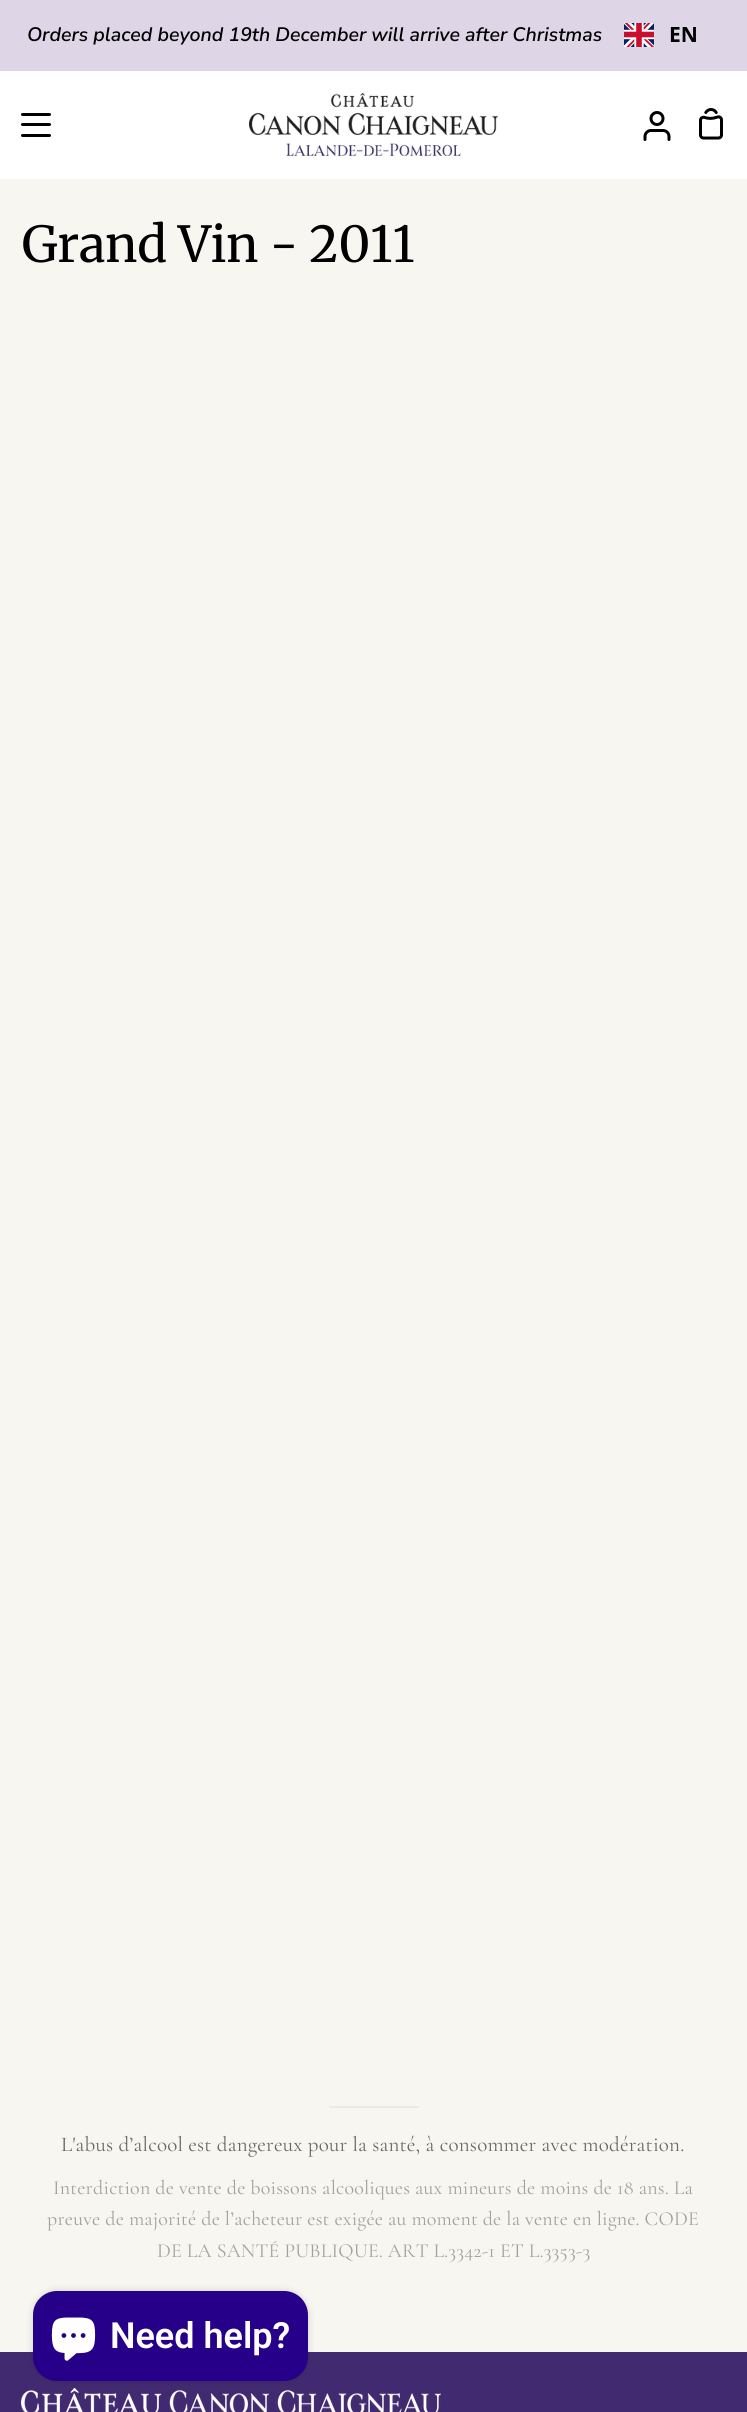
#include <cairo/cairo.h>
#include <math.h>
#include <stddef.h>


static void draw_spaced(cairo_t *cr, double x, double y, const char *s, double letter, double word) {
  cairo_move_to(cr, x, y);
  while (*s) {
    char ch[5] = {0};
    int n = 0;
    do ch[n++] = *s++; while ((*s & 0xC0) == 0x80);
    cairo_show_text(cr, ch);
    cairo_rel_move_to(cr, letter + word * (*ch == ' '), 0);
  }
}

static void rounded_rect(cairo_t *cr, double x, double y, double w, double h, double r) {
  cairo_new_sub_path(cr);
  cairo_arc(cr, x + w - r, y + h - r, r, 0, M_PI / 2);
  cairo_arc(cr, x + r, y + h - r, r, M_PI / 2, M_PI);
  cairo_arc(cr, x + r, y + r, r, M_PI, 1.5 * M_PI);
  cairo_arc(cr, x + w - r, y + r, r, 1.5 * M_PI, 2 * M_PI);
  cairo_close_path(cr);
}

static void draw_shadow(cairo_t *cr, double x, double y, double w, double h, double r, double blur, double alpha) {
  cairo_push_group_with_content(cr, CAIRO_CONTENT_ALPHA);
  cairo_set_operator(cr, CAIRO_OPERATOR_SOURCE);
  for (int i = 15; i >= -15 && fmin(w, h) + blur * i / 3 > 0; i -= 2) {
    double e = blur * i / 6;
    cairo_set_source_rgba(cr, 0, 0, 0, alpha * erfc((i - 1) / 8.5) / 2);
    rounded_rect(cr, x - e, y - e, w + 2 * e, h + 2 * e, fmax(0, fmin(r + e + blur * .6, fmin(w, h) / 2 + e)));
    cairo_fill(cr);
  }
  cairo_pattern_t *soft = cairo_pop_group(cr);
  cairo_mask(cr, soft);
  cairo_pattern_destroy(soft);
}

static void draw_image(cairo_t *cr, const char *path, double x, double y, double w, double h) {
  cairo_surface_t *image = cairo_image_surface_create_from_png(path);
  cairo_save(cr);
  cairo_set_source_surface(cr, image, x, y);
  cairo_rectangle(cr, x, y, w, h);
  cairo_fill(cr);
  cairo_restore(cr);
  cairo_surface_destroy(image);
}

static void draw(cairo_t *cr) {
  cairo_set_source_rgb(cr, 247 / 255.0, 246 / 255.0, 240 / 255.0);
  cairo_paint(cr);
  cairo_set_source_rgb(cr, 1, 1, 1);
  cairo_rectangle(cr, 0, 71, 747, 108);
  cairo_fill(cr);
  cairo_set_source_rgb(cr, 222 / 255.0, 214 / 255.0, 231 / 255.0);
  cairo_rectangle(cr, 0, 0, 747, 71);
  cairo_fill(cr);
  draw_image(cr, "images/1.png", 624, 23, 30, 24);
  cairo_set_source_rgb(cr, 0, 0, 0);
  rounded_rect(cr, 21, 113, 30, 3, 1.5);
  cairo_fill(cr);
  rounded_rect(cr, 21, 123, 30, 3, 1.5);
  cairo_fill(cr);
  rounded_rect(cr, 21, 134, 30, 3, 1.5);
  cairo_fill(cr);
  draw_image(cr, "images/2.png", 249, 93, 249, 63);
  draw_image(cr, "images/3.png", 643, 111, 28, 30);
  draw_image(cr, "images/4.png", 699, 108, 24, 32);
  cairo_set_source_rgb(cr, 235 / 255.0, 234 / 255.0, 228 / 255.0);
  cairo_rectangle(cr, 329, 2106, 90, 2);
  cairo_fill(cr);
  cairo_set_source_rgb(cr, 66 / 255.0, 42 / 255.0, 112 / 255.0);
  cairo_rectangle(cr, 0, 2352, 747, 60);
  cairo_fill(cr);
  draw_image(cr, "images/6.png", 21, 2388, 420, 24);
  cairo_set_source_rgb(cr, 0, 0, 0);
  draw_shadow(cr, 33, 2291, 275, 90, 24, 4, 0.15);
  cairo_set_source_rgb(cr, 39 / 255.0, 0, 137 / 255.0);
  rounded_rect(cr, 33, 2291, 275, 90, 24);
  cairo_fill(cr);
  draw_image(cr, "images/5.png", 51, 2317, 45, 44);
  cairo_select_font_face(cr, "Nunito Sans SemiBold", CAIRO_FONT_SLANT_ITALIC, CAIRO_FONT_WEIGHT_NORMAL);
  cairo_set_font_size(cr, 19.5);
  cairo_set_source_rgb(cr, 0, 0, 0);
  cairo_move_to(cr, 27, 41);
  cairo_show_text(cr, "Orders placed beyond 19th December will arrive after Christmas");
  cairo_select_font_face(cr, "Noto Sans", CAIRO_FONT_SLANT_NORMAL, CAIRO_FONT_WEIGHT_BOLD);
  cairo_set_font_size(cr, 21);
  cairo_move_to(cr, 669, 42);
  cairo_show_text(cr, "EN");
  cairo_select_font_face(cr, "Merriweather", CAIRO_FONT_SLANT_NORMAL, CAIRO_FONT_WEIGHT_NORMAL);
  cairo_set_font_size(cr, 49.5);
  cairo_move_to(cr, 22, 262);
  cairo_show_text(cr, "Grand Vin - 2011");
  cairo_select_font_face(cr, "Cormorant Garamond", CAIRO_FONT_SLANT_NORMAL, CAIRO_FONT_WEIGHT_NORMAL);
  cairo_set_font_size(cr, 21);
  cairo_set_source_rgb(cr, 104 / 255.0, 104 / 255.0, 102 / 255.0);
  draw_spaced(cr, 61, 2151, "L'abus d’alcool est dangereux pour la santé, à consommer avec modération.", 0.2, 0);
  cairo_set_font_size(cr, 19.95);
  cairo_set_source_rgb(cr, 161 / 255.0, 161 / 255.0, 157 / 255.0);
  draw_spaced(cr, 53, 2194, "Interdiction de vente de boissons alcooliques aux mineurs de moins de 18 ans. La", 0.2, 0);
  draw_spaced(cr, 47, 2225, "preuve de majorité de l’acheteur est exigée au moment de la vente en ligne. CODE", 0.2, 0);
  draw_spaced(cr, 157, 2257, "DE LA SANTÉ PUBLIQUE. ART L.3342-1 ET L.3353-3", 0.2, 0);
  cairo_select_font_face(cr, "Roboto SemiBold", CAIRO_FONT_SLANT_NORMAL, CAIRO_FONT_WEIGHT_NORMAL);
  cairo_set_font_size(cr, 36);
  cairo_set_source_rgb(cr, 1, 1, 1);
  cairo_move_to(cr, 110, 2348);
  cairo_show_text(cr, "Need help?");
}

int main(void) {
  cairo_surface_t *surface = cairo_image_surface_create(CAIRO_FORMAT_RGB24, 747, 2412);
  cairo_t *cr = cairo_create(surface);
  cairo_font_options_t *options = cairo_font_options_create();
  cairo_font_options_set_hint_metrics(options, CAIRO_HINT_METRICS_OFF);
  cairo_font_options_set_hint_style(options, CAIRO_HINT_STYLE_NONE);
  cairo_set_font_options(cr, options);
  cairo_set_miter_limit(cr, 4);
  draw(cr);
  cairo_surface_write_to_png(surface, "out.png");
  cairo_font_options_destroy(options);
  cairo_destroy(cr);
  cairo_surface_destroy(surface);
  return 0;
}
